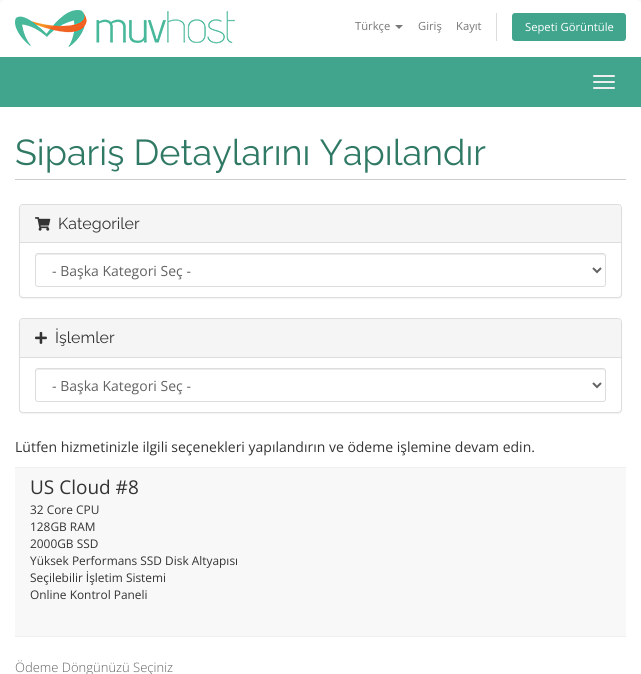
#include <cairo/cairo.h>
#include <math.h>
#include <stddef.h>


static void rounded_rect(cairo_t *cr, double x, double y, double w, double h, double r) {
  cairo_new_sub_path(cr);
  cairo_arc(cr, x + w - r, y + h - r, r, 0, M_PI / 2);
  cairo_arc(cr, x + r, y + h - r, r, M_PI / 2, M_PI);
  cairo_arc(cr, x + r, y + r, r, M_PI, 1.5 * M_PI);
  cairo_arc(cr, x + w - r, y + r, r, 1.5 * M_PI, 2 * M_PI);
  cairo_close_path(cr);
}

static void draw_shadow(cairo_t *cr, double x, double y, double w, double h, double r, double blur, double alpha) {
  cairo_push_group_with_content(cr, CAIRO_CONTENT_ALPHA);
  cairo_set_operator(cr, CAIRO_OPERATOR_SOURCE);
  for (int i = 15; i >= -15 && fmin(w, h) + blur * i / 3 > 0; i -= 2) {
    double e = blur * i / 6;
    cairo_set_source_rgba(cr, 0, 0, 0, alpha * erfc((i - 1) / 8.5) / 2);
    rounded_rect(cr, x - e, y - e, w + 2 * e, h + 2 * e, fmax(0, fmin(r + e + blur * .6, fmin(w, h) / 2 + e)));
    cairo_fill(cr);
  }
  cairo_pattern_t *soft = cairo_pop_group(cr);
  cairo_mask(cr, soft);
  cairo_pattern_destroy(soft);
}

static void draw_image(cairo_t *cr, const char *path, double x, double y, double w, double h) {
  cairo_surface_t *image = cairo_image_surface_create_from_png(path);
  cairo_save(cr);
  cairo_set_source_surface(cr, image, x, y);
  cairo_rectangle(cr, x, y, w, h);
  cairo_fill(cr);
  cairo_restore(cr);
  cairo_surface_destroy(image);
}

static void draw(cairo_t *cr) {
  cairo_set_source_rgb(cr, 248 / 255.0, 248 / 255.0, 248 / 255.0);
  cairo_paint(cr);
  cairo_set_source_rgb(cr, 1, 1, 1);
  cairo_new_path(cr);
  cairo_move_to(cr, 5, 0);
  cairo_line_to(cr, 636, 0);
  cairo_curve_to(cr, 639, 0, 641, 2, 641, 5);
  cairo_line_to(cr, 641, 57);
  cairo_line_to(cr, 0, 57);
  cairo_line_to(cr, 0, 5);
  cairo_curve_to(cr, 0, 2, 2, 0, 5, 0);
  cairo_close_path(cr);
  cairo_fill(cr);
  draw_image(cr, "images/1.png", 15, 10, 220, 37);
  cairo_set_source_rgb(cr, 119 / 255.0, 119 / 255.0, 119 / 255.0);
  cairo_new_path(cr);
  cairo_move_to(cr, 395, 25);
  cairo_line_to(cr, 403, 25);
  cairo_line_to(cr, 399, 29);
  cairo_close_path(cr);
  cairo_fill(cr);
  cairo_set_source_rgb(cr, 221 / 255.0, 221 / 255.0, 221 / 255.0);
  cairo_rectangle(cr, 496, 13, 1, 28);
  cairo_fill(cr);
  cairo_set_source_rgb(cr, 65 / 255.0, 165 / 255.0, 141 / 255.0);
  rounded_rect(cr, 512, 13, 114, 28, 3);
  cairo_fill(cr);
  cairo_rectangle(cr, 0, 57, 641, 50);
  cairo_fill(cr);
  cairo_set_source_rgb(cr, 238 / 255.0, 238 / 255.0, 238 / 255.0);
  rounded_rect(cr, 593, 75, 22, 2, 1);
  cairo_fill(cr);
  rounded_rect(cr, 593, 81, 22, 2, 1);
  cairo_fill(cr);
  rounded_rect(cr, 593, 87, 22, 2, 1);
  cairo_fill(cr);
  cairo_set_source_rgb(cr, 1, 1, 1);
  cairo_rectangle(cr, 0, 107, 641, 567);
  cairo_fill(cr);
  cairo_set_source_rgb(cr, 204 / 255.0, 204 / 255.0, 204 / 255.0);
  cairo_rectangle(cr, 15, 179, 611, 1);
  cairo_fill(cr);
  cairo_set_source_rgb(cr, 0, 0, 0);
  draw_shadow(cr, 19, 205, 603, 94, 4, 0.5, 0.05);
  cairo_set_source_rgb(cr, 1, 1, 1);
  rounded_rect(cr, 19.5, 204.5, 602, 93, 3.5);
  cairo_fill_preserve(cr);
  cairo_set_source_rgb(cr, 221 / 255.0, 221 / 255.0, 221 / 255.0);
  cairo_set_line_width(cr, 1);
  cairo_stroke(cr);
  cairo_set_source_rgb(cr, 245 / 255.0, 245 / 255.0, 245 / 255.0);
  cairo_new_path(cr);
  cairo_move_to(cr, 23, 205);
  cairo_line_to(cr, 618, 205);
  cairo_curve_to(cr, 619.5, 205, 621, 206.5, 621, 208);
  cairo_line_to(cr, 621, 243);
  cairo_line_to(cr, 20, 243);
  cairo_line_to(cr, 20, 208);
  cairo_curve_to(cr, 20, 206.5, 21.5, 205, 23, 205);
  cairo_close_path(cr);
  cairo_fill(cr);
  cairo_set_source_rgb(cr, 221 / 255.0, 221 / 255.0, 221 / 255.0);
  cairo_rectangle(cr, 20, 242, 601, 1);
  cairo_fill(cr);
  draw_image(cr, "images/2.png", 35, 217, 16, 14);
  cairo_set_source_rgb(cr, 236 / 255.0, 236 / 255.0, 236 / 255.0);
  cairo_new_path(cr);
  cairo_move_to(cr, 38, 255);
  cairo_line_to(cr, 603, 255);
  cairo_curve_to(cr, 604, 255, 605, 256, 605, 257);
  cairo_curve_to(cr, 605, 256, 605, 254, 603, 254);
  cairo_line_to(cr, 38, 254);
  cairo_line_to(cr, 36, 255);
  cairo_line_to(cr, 36, 257);
  cairo_curve_to(cr, 36, 256, 37, 255, 38, 255);
  cairo_close_path(cr);
  cairo_fill(cr);
  rounded_rect(cr, 35.5, 253.5, 570, 33, 2.5);
  cairo_set_source_rgb(cr, 221 / 255.0, 221 / 255.0, 221 / 255.0);
  cairo_stroke(cr);
  cairo_new_path(cr);
  cairo_move_to(cr, 593, 268);
  cairo_line_to(cr, 597, 272);
  cairo_line_to(cr, 601, 268);
  cairo_set_source_rgb(cr, 98 / 255.0, 98 / 255.0, 98 / 255.0);
  cairo_set_line_width(cr, 2);
  cairo_stroke(cr);
  cairo_set_source_rgb(cr, 0, 0, 0);
  draw_shadow(cr, 19, 319, 603, 95, 4, 0.5, 0.05);
  cairo_set_source_rgb(cr, 1, 1, 1);
  rounded_rect(cr, 19.5, 318.5, 602, 94, 3.5);
  cairo_fill_preserve(cr);
  cairo_set_source_rgb(cr, 221 / 255.0, 221 / 255.0, 221 / 255.0);
  cairo_set_line_width(cr, 1);
  cairo_stroke(cr);
  cairo_set_source_rgb(cr, 245 / 255.0, 245 / 255.0, 245 / 255.0);
  cairo_new_path(cr);
  cairo_move_to(cr, 23, 319);
  cairo_line_to(cr, 618, 319);
  cairo_curve_to(cr, 619.5, 319, 621, 320.5, 621, 322);
  cairo_line_to(cr, 621, 358);
  cairo_line_to(cr, 20, 358);
  cairo_line_to(cr, 20, 322);
  cairo_curve_to(cr, 20, 320.5, 21.5, 319, 23, 319);
  cairo_close_path(cr);
  cairo_fill(cr);
  cairo_set_source_rgb(cr, 221 / 255.0, 221 / 255.0, 221 / 255.0);
  cairo_rectangle(cr, 20, 357, 601, 1);
  cairo_fill(cr);
  draw_image(cr, "images/3.png", 35, 331, 12, 13);
  cairo_set_source_rgb(cr, 236 / 255.0, 236 / 255.0, 236 / 255.0);
  cairo_new_path(cr);
  cairo_move_to(cr, 38, 370);
  cairo_line_to(cr, 603, 370);
  cairo_curve_to(cr, 604, 370, 605, 371, 605, 372);
  cairo_curve_to(cr, 605, 371, 605, 369, 603, 369);
  cairo_line_to(cr, 38, 369);
  cairo_line_to(cr, 36, 370);
  cairo_line_to(cr, 36, 372);
  cairo_curve_to(cr, 36, 371, 37, 370, 38, 370);
  cairo_close_path(cr);
  cairo_fill(cr);
  rounded_rect(cr, 35.5, 368.5, 570, 33, 2.5);
  cairo_set_source_rgb(cr, 221 / 255.0, 221 / 255.0, 221 / 255.0);
  cairo_stroke(cr);
  cairo_new_path(cr);
  cairo_move_to(cr, 593, 383);
  cairo_line_to(cr, 597, 387);
  cairo_line_to(cr, 601, 383);
  cairo_set_source_rgb(cr, 98 / 255.0, 98 / 255.0, 98 / 255.0);
  cairo_set_line_width(cr, 2);
  cairo_stroke(cr);
  cairo_set_source_rgb(cr, 248 / 255.0, 248 / 255.0, 248 / 255.0);
  cairo_rectangle(cr, 15, 468, 611, 168);
  cairo_fill(cr);
  cairo_set_source_rgb(cr, 239 / 255.0, 239 / 255.0, 239 / 255.0);
  cairo_rectangle(cr, 15, 467, 611, 1);
  cairo_fill(cr);
  cairo_rectangle(cr, 15, 636, 611, 1);
  cairo_fill(cr);
  cairo_select_font_face(cr, "Open Sans", CAIRO_FONT_SLANT_NORMAL, CAIRO_FONT_WEIGHT_NORMAL);
  cairo_set_font_size(cr, 11.25);
  cairo_set_source_rgb(cr, 119 / 255.0, 119 / 255.0, 119 / 255.0);
  cairo_move_to(cr, 355, 30);
  cairo_show_text(cr, "Türkçe");
  cairo_move_to(cr, 418, 30);
  cairo_show_text(cr, "Giriş");
  cairo_move_to(cr, 456, 30);
  cairo_show_text(cr, "Kayıt");
  cairo_set_source_rgb(cr, 1, 1, 1);
  cairo_move_to(cr, 525, 31);
  cairo_show_text(cr, "Sepeti Görüntüle");
  cairo_select_font_face(cr, "Raleway", CAIRO_FONT_SLANT_NORMAL, CAIRO_FONT_WEIGHT_NORMAL);
  cairo_set_font_size(cr, 36);
  cairo_set_source_rgb(cr, 48 / 255.0, 121 / 255.0, 101 / 255.0);
  cairo_move_to(cr, 15, 165);
  cairo_show_text(cr, "Sipariş Detaylarını Yapılandır");
  cairo_set_font_size(cr, 16);
  cairo_set_source_rgb(cr, 51 / 255.0, 51 / 255.0, 51 / 255.0);
  cairo_move_to(cr, 58, 229);
  cairo_show_text(cr, "Kategoriler");
  cairo_select_font_face(cr, "Open Sans", CAIRO_FONT_SLANT_NORMAL, CAIRO_FONT_WEIGHT_NORMAL);
  cairo_set_font_size(cr, 14);
  cairo_set_source_rgb(cr, 98 / 255.0, 98 / 255.0, 98 / 255.0);
  cairo_move_to(cr, 52, 276);
  cairo_show_text(cr, "- Başka Kategori Seç -");
  cairo_select_font_face(cr, "Raleway", CAIRO_FONT_SLANT_NORMAL, CAIRO_FONT_WEIGHT_NORMAL);
  cairo_set_font_size(cr, 16);
  cairo_set_source_rgb(cr, 51 / 255.0, 51 / 255.0, 51 / 255.0);
  cairo_move_to(cr, 55, 343);
  cairo_show_text(cr, "İşlemler");
  cairo_select_font_face(cr, "Open Sans", CAIRO_FONT_SLANT_NORMAL, CAIRO_FONT_WEIGHT_NORMAL);
  cairo_set_font_size(cr, 14);
  cairo_set_source_rgb(cr, 98 / 255.0, 98 / 255.0, 98 / 255.0);
  cairo_move_to(cr, 52, 391);
  cairo_show_text(cr, "- Başka Kategori Seç -");
  cairo_set_source_rgb(cr, 51 / 255.0, 51 / 255.0, 51 / 255.0);
  cairo_move_to(cr, 15, 452);
  cairo_show_text(cr, "Lütfen hizmetinizle ilgili seçenekleri yapılandırın ve ödeme işlemine devam edin.");
  cairo_set_font_size(cr, 19);
  cairo_move_to(cr, 30, 494);
  cairo_show_text(cr, "US Cloud #8");
  cairo_set_font_size(cr, 11.9);
  cairo_move_to(cr, 30, 514);
  cairo_show_text(cr, "32 Core CPU");
  cairo_move_to(cr, 30, 531);
  cairo_show_text(cr, "128GB RAM");
  cairo_move_to(cr, 30, 548);
  cairo_show_text(cr, "2000GB SSD");
  cairo_move_to(cr, 30, 565);
  cairo_show_text(cr, "Yüksek Performans SSD Disk Altyapısı");
  cairo_move_to(cr, 30, 582);
  cairo_show_text(cr, "Seçilebilir İşletim Sistemi");
  cairo_move_to(cr, 30, 599);
  cairo_show_text(cr, "Online Kontrol Paneli");
  cairo_select_font_face(cr, "Open Sans Light", CAIRO_FONT_SLANT_NORMAL, CAIRO_FONT_WEIGHT_NORMAL);
  cairo_set_font_size(cr, 13);
  cairo_set_source_rgb(cr, 98 / 255.0, 98 / 255.0, 98 / 255.0);
  cairo_move_to(cr, 15, 672);
  cairo_show_text(cr, "Ödeme Döngünüzü Seçiniz");
}

int main(void) {
  cairo_surface_t *surface = cairo_image_surface_create(CAIRO_FORMAT_RGB24, 641, 674);
  cairo_t *cr = cairo_create(surface);
  cairo_font_options_t *options = cairo_font_options_create();
  cairo_font_options_set_hint_metrics(options, CAIRO_HINT_METRICS_OFF);
  cairo_font_options_set_hint_style(options, CAIRO_HINT_STYLE_NONE);
  cairo_set_font_options(cr, options);
  cairo_set_miter_limit(cr, 4);
  draw(cr);
  cairo_surface_write_to_png(surface, "out.png");
  cairo_font_options_destroy(options);
  cairo_destroy(cr);
  cairo_surface_destroy(surface);
  return 0;
}
